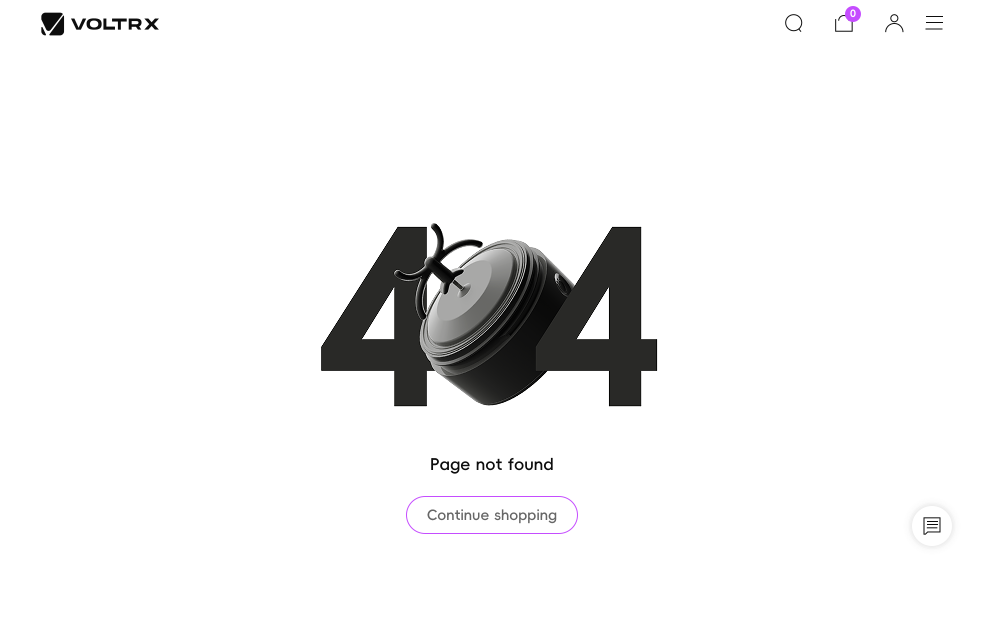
#include <cairo/cairo.h>
#include <math.h>
#include <stddef.h>


static void rounded_rect(cairo_t *cr, double x, double y, double w, double h, double r) {
  cairo_new_sub_path(cr);
  cairo_arc(cr, x + w - r, y + h - r, r, 0, M_PI / 2);
  cairo_arc(cr, x + r, y + h - r, r, M_PI / 2, M_PI);
  cairo_arc(cr, x + r, y + r, r, M_PI, 1.5 * M_PI);
  cairo_arc(cr, x + w - r, y + r, r, 1.5 * M_PI, 2 * M_PI);
  cairo_close_path(cr);
}

static void draw_shadow(cairo_t *cr, double x, double y, double w, double h, double r, double blur, double alpha) {
  cairo_push_group_with_content(cr, CAIRO_CONTENT_ALPHA);
  cairo_set_operator(cr, CAIRO_OPERATOR_SOURCE);
  for (int i = 15; i >= -15 && fmin(w, h) + blur * i / 3 > 0; i -= 2) {
    double e = blur * i / 6;
    cairo_set_source_rgba(cr, 0, 0, 0, alpha * erfc((i - 1) / 8.5) / 2);
    rounded_rect(cr, x - e, y - e, w + 2 * e, h + 2 * e, fmax(0, fmin(r + e + blur * .6, fmin(w, h) / 2 + e)));
    cairo_fill(cr);
  }
  cairo_pattern_t *soft = cairo_pop_group(cr);
  cairo_mask(cr, soft);
  cairo_pattern_destroy(soft);
}

static void draw_image(cairo_t *cr, const char *path, double x, double y, double w, double h) {
  cairo_surface_t *image = cairo_image_surface_create_from_png(path);
  cairo_save(cr);
  cairo_set_source_surface(cr, image, x, y);
  cairo_rectangle(cr, x, y, w, h);
  cairo_fill(cr);
  cairo_restore(cr);
  cairo_surface_destroy(image);
}

static void draw(cairo_t *cr) {
  cairo_set_source_rgb(cr, 1, 1, 1);
  cairo_paint(cr);
  draw_image(cr, "images/1.png", 41, 12, 118, 24);
  draw_image(cr, "images/2.png", 785, 14, 18, 18);
  draw_image(cr, "images/3.png", 835, 15, 18, 17);
  cairo_set_source_rgb(cr, 197 / 255.0, 77 / 255.0, 1);
  cairo_arc(cr, 853, 14, 8, 0, 2 * M_PI);
  cairo_fill(cr);
  draw_image(cr, "images/4.png", 885, 14, 19, 19);
  cairo_set_source_rgb(cr, 13 / 255.0, 13 / 255.0, 13 / 255.0);
  cairo_rectangle(cr, 926, 16, 17, 1);
  cairo_fill(cr);
  cairo_rectangle(cr, 926, 22, 17, 1);
  cairo_fill(cr);
  cairo_new_path(cr);
  cairo_move_to(cr, 925.5, 29);
  cairo_line_to(cr, 942.5, 29);
  cairo_set_line_width(cr, 1);
  cairo_stroke(cr);
  draw_image(cr, "images/5.png", 321, 223, 337, 184);
  rounded_rect(cr, 406.5, 496.5, 171, 37, 18.5);
  cairo_set_source_rgb(cr, 197 / 255.0, 77 / 255.0, 1);
  cairo_stroke(cr);
  cairo_set_source_rgb(cr, 34 / 255.0, 34 / 255.0, 34 / 255.0);
  draw_shadow(cr, 912, 506, 40, 40, 20, 4, 0.17);
  cairo_set_source_rgb(cr, 1, 1, 1);
  cairo_arc(cr, 932, 526, 20, 0, 2 * M_PI);
  cairo_fill(cr);
  draw_image(cr, "images/6.png", 923, 517, 18, 18);
  cairo_select_font_face(cr, "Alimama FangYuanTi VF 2 Thin", CAIRO_FONT_SLANT_NORMAL, CAIRO_FONT_WEIGHT_NORMAL);
  cairo_set_font_size(cr, 10);
  cairo_move_to(cr, 850, 17);
  cairo_show_text(cr, "0");
  cairo_select_font_face(cr, "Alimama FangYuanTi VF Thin", CAIRO_FONT_SLANT_NORMAL, CAIRO_FONT_WEIGHT_NORMAL);
  cairo_set_font_size(cr, 16);
  cairo_set_source_rgb(cr, 13 / 255.0, 13 / 255.0, 13 / 255.0);
  cairo_move_to(cr, 430, 470);
  cairo_show_text(cr, "Page not found");
  cairo_set_font_size(cr, 14);
  cairo_set_source_rgb(cr, 102 / 255.0, 102 / 255.0, 102 / 255.0);
  cairo_move_to(cr, 427, 520);
  cairo_show_text(cr, "Continue shopping");
}

int main(void) {
  cairo_surface_t *surface = cairo_image_surface_create(CAIRO_FORMAT_RGB24, 984, 618);
  cairo_t *cr = cairo_create(surface);
  cairo_font_options_t *options = cairo_font_options_create();
  cairo_font_options_set_hint_metrics(options, CAIRO_HINT_METRICS_OFF);
  cairo_font_options_set_hint_style(options, CAIRO_HINT_STYLE_NONE);
  cairo_set_font_options(cr, options);
  cairo_set_miter_limit(cr, 4);
  draw(cr);
  cairo_surface_write_to_png(surface, "out.png");
  cairo_font_options_destroy(options);
  cairo_destroy(cr);
  cairo_surface_destroy(surface);
  return 0;
}
